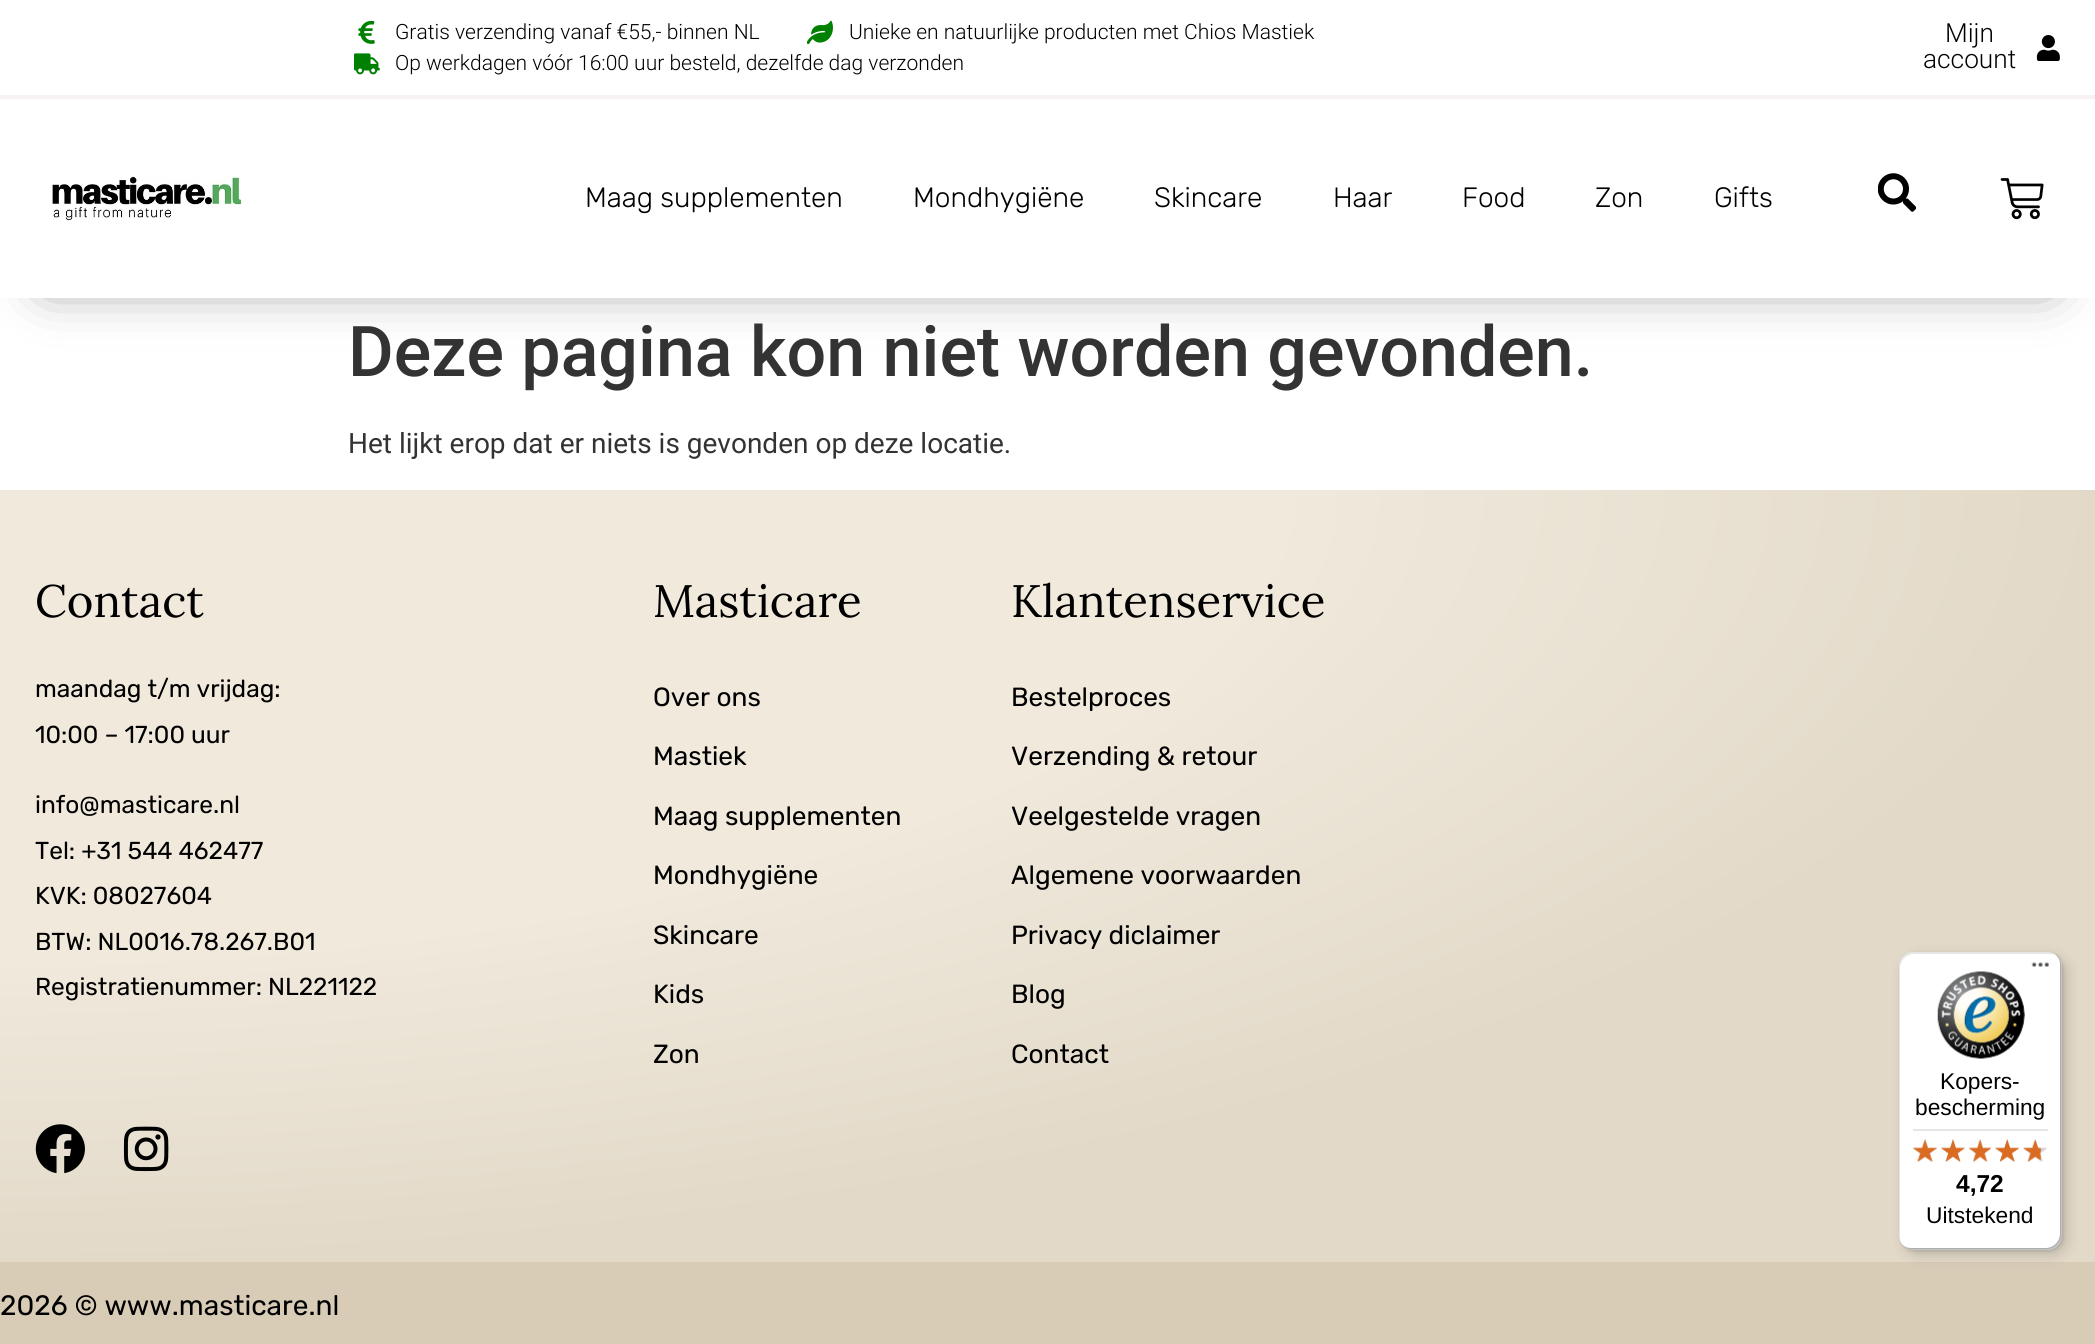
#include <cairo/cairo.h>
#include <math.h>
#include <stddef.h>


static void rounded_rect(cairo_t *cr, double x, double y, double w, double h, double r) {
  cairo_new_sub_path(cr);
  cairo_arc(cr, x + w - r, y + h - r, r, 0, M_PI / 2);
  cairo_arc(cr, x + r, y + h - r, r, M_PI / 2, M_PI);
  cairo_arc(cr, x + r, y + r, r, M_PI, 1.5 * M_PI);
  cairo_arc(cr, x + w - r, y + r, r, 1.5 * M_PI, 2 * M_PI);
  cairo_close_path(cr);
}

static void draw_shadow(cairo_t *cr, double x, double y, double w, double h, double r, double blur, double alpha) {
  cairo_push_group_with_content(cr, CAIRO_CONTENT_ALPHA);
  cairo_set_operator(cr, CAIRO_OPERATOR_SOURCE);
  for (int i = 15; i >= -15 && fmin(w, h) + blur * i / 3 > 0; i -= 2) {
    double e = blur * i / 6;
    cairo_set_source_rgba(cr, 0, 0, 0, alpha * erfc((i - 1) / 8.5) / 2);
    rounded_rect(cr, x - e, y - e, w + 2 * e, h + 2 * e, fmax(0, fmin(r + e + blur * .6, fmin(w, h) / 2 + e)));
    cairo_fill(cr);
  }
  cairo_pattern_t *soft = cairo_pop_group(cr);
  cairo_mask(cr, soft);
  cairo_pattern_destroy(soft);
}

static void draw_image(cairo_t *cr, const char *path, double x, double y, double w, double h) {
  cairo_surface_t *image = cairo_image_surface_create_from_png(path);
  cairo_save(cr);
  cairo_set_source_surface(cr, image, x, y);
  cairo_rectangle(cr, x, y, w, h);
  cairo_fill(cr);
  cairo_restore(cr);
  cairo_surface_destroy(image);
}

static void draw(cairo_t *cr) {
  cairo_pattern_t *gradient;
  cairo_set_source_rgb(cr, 1, 1, 1);
  cairo_paint(cr);
  cairo_save(cr);
  cairo_set_fill_rule(cr, CAIRO_FILL_RULE_EVEN_ODD);
  cairo_new_path(cr);
  cairo_move_to(cr, 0, 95);
  cairo_line_to(cr, 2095, 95);
  cairo_line_to(cr, 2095, 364);
  cairo_line_to(cr, 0, 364);
  cairo_close_path(cr);
  cairo_move_to(cr, 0, 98);
  cairo_line_to(cr, 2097, 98);
  cairo_line_to(cr, 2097, 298);
  cairo_line_to(cr, 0, 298);
  cairo_close_path(cr);
  cairo_clip(cr);
  cairo_set_source_rgb(cr, 0, 0, 0);
  draw_shadow(cr, 47, 177, 2002, 105, 0, 27, 0.5);
  cairo_restore(cr);
  cairo_set_source_rgb(cr, 247 / 255.0, 241 / 255.0, 243 / 255.0);
  cairo_rectangle(cr, 0, 95, 2095, 4);
  cairo_fill(cr);
  draw_image(cr, "images/1.png", 358, 20, 17, 24);
  draw_image(cr, "images/2.png", 807, 20, 26, 24);
  draw_image(cr, "images/3.png", 354, 53, 26, 22);
  draw_image(cr, "images/4.png", 2036, 35, 24, 26);
  draw_image(cr, "images/5.png", 52, 176, 190, 45);
  draw_image(cr, "images/6.png", 1878, 173, 38, 39);
  draw_image(cr, "images/7.png", 2000, 178, 44, 42);
  gradient = cairo_pattern_create_radial(0, 0, 0, 0, 0, 1);
  cairo_pattern_set_matrix(gradient, &(cairo_matrix_t){1.0 / 2965, 0, 0, 1.0 / 1091, -1.0 * 0 / 2965, -1.0 * 490 / 1091});
  cairo_pattern_add_color_stop_rgba(gradient, 0.43, 240 / 255.0, 233 / 255.0, 220 / 255.0, 1);
  cairo_pattern_add_color_stop_rgba(gradient, 0.71, 226 / 255.0, 217 / 255.0, 200 / 255.0, 1);
  cairo_set_source(cr, gradient);
  cairo_pattern_destroy(gradient);
  cairo_rectangle(cr, 0, 490, 2095, 772);
  cairo_fill(cr);
  draw_image(cr, "images/8.png", 35, 1124, 50, 50);
  draw_image(cr, "images/9.png", 123, 1126, 46, 46);
  cairo_set_source_rgb(cr, 216 / 255.0, 204 / 255.0, 183 / 255.0);
  cairo_rectangle(cr, 0, 1262, 2095, 82);
  cairo_fill(cr);
  cairo_set_source_rgb(cr, 0, 0, 0);
  draw_shadow(cr, 1904, 957, 163, 298, 14, 7, 0.15);
  draw_shadow(cr, 1901, 954, 162, 297, 14, 2, 0.15);
  cairo_set_source_rgb(cr, 1, 1, 1);
  rounded_rect(cr, 1899, 952, 163, 298, 14);
  cairo_fill(cr);
  cairo_set_source_rgba(cr, 0, 0, 0, 0.1);
  cairo_new_path(cr);
  cairo_move_to(cr, 1914, 954);
  cairo_line_to(cr, 2049, 954);
  cairo_curve_to(cr, 2054, 954, 2058, 956, 2061, 960);
  cairo_curve_to(cr, 2058, 955, 2054, 952, 2048, 952);
  cairo_line_to(cr, 1913, 952);
  cairo_curve_to(cr, 1905, 952, 1899, 958, 1899, 966);
  cairo_line_to(cr, 1899, 1236);
  cairo_curve_to(cr, 1899, 1241, 1901, 1245, 1905, 1247);
  cairo_curve_to(cr, 1902, 1245, 1900, 1241, 1900, 1237);
  cairo_line_to(cr, 1900, 968);
  cairo_curve_to(cr, 1900, 960, 1907, 954, 1914, 954);
  cairo_close_path(cr);
  cairo_fill(cr);
  cairo_set_source_rgba(cr, 0, 0, 0, 0.2);
  cairo_new_path(cr);
  cairo_move_to(cr, 1902, 1244);
  cairo_curve_to(cr, 1904, 1248, 1908, 1250, 1913, 1250);
  cairo_line_to(cr, 2048, 1250);
  cairo_curve_to(cr, 2056, 1250, 2062, 1244, 2062, 1236);
  cairo_line_to(cr, 2062, 966);
  cairo_curve_to(cr, 2062, 961, 2059, 956, 2055, 954);
  cairo_curve_to(cr, 2058, 957, 2060, 960, 2060, 964);
  cairo_line_to(cr, 2060, 1234);
  cairo_curve_to(cr, 2060, 1241, 2053, 1248, 2046, 1248);
  cairo_line_to(cr, 1911, 1248);
  cairo_curve_to(cr, 1907, 1248, 1904, 1247, 1902, 1244);
  cairo_close_path(cr);
  cairo_fill(cr);
  cairo_set_source_rgba(cr, 50 / 255.0, 50 / 255.0, 50 / 255.0, 0.2);
  cairo_new_path(cr);
  cairo_move_to(cr, 1900, 1242);
  cairo_curve_to(cr, 1903, 1247, 1907, 1250, 1913, 1250);
  cairo_line_to(cr, 2048, 1250);
  cairo_curve_to(cr, 2056, 1250, 2062, 1244, 2062, 1236);
  cairo_line_to(cr, 2062, 966);
  cairo_curve_to(cr, 2062, 960, 2059, 956, 2054, 953);
  cairo_curve_to(cr, 2058, 956, 2060, 960, 2060, 965);
  cairo_line_to(cr, 2060, 1234);
  cairo_curve_to(cr, 2060, 1242, 2054, 1248, 2046, 1248);
  cairo_line_to(cr, 1912, 1248);
  cairo_curve_to(cr, 1907, 1248, 1903, 1246, 1900, 1242);
  cairo_close_path(cr);
  cairo_fill(cr);
  cairo_set_source_rgba(cr, 1, 1, 1, 0.3);
  cairo_new_path(cr);
  cairo_move_to(cr, 1902, 1244);
  cairo_curve_to(cr, 1904, 1248, 1908, 1250, 1913, 1250);
  cairo_line_to(cr, 2048, 1250);
  cairo_curve_to(cr, 2056, 1250, 2062, 1244, 2062, 1236);
  cairo_line_to(cr, 2062, 966);
  cairo_curve_to(cr, 2062, 961, 2060, 957, 2056, 955);
  cairo_curve_to(cr, 2059, 957, 2061, 961, 2061, 965);
  cairo_line_to(cr, 2061, 1235);
  cairo_curve_to(cr, 2061, 1242, 2054, 1249, 2047, 1249);
  cairo_line_to(cr, 1912, 1249);
  cairo_curve_to(cr, 1908, 1249, 1904, 1247, 1902, 1244);
  cairo_close_path(cr);
  cairo_fill(cr);
  draw_image(cr, "images/10.png", 2031, 962, 18, 5);
  draw_image(cr, "images/11.png", 1937, 971, 88, 88);
  cairo_set_source_rgb(cr, 229 / 255.0, 229 / 255.0, 229 / 255.0);
  cairo_rectangle(cr, 1913, 1129, 135, 2);
  cairo_fill(cr);
  draw_image(cr, "images/17.png", 1913, 1139, 24, 23);
  draw_image(cr, "images/12.png", 1912, 1139, 25, 23);
  draw_image(cr, "images/18.png", 1941, 1139, 24, 23);
  draw_image(cr, "images/13.png", 1941, 1139, 24, 23);
  draw_image(cr, "images/19.png", 1969, 1139, 22, 23);
  draw_image(cr, "images/14.png", 1968, 1139, 24, 23);
  draw_image(cr, "images/20.png", 1995, 1139, 24, 23);
  draw_image(cr, "images/15.png", 1995, 1139, 24, 23);
  draw_image(cr, "images/21.png", 2023, 1139, 24, 23);
  draw_image(cr, "images/16.png", 2023, 1139, 18, 23);
  cairo_select_font_face(cr, "Roboto Light", CAIRO_FONT_SLANT_NORMAL, CAIRO_FONT_WEIGHT_NORMAL);
  cairo_set_font_size(cr, 21);
  cairo_set_source_rgb(cr, 0, 0, 0);
  cairo_move_to(cr, 395, 39);
  cairo_show_text(cr, "Gratis verzending vanaf €55,- binnen NL");
  cairo_move_to(cr, 849, 39);
  cairo_show_text(cr, "Unieke en natuurlijke producten met Chios Mastiek");
  cairo_move_to(cr, 395, 70);
  cairo_show_text(cr, "Op werkdagen vóór 16:00 uur besteld, dezelfde dag verzonden");
  cairo_set_font_size(cr, 26.25);
  cairo_move_to(cr, 1945, 42);
  cairo_show_text(cr, "Mijn");
  cairo_move_to(cr, 1923, 68);
  cairo_show_text(cr, "account");
  cairo_select_font_face(cr, "Rubik Light", CAIRO_FONT_SLANT_NORMAL, CAIRO_FONT_WEIGHT_NORMAL);
  cairo_set_font_size(cr, 28);
  cairo_move_to(cr, 585, 207);
  cairo_show_text(cr, "Maag supplementen");
  cairo_move_to(cr, 913, 207);
  cairo_show_text(cr, "Mondhygiëne");
  cairo_move_to(cr, 1154, 207);
  cairo_show_text(cr, "Skincare");
  cairo_move_to(cr, 1333, 207);
  cairo_show_text(cr, "Haar");
  cairo_move_to(cr, 1462, 207);
  cairo_show_text(cr, "Food");
  cairo_move_to(cr, 1595, 207);
  cairo_show_text(cr, "Zon");
  cairo_move_to(cr, 1714, 207);
  cairo_show_text(cr, "Gifts");
  cairo_select_font_face(cr, "Roboto Medium", CAIRO_FONT_SLANT_NORMAL, CAIRO_FONT_WEIGHT_NORMAL);
  cairo_set_font_size(cr, 70);
  cairo_set_source_rgb(cr, 51 / 255.0, 51 / 255.0, 51 / 255.0);
  cairo_move_to(cr, 348, 376);
  cairo_show_text(cr, "Deze pagina kon niet worden gevonden.");
  cairo_select_font_face(cr, "Roboto", CAIRO_FONT_SLANT_NORMAL, CAIRO_FONT_WEIGHT_NORMAL);
  cairo_set_font_size(cr, 28);
  cairo_move_to(cr, 348, 453);
  cairo_show_text(cr, "Het lijkt erop dat er niets is gevonden op deze locatie.");
  cairo_select_font_face(cr, "Lora", CAIRO_FONT_SLANT_NORMAL, CAIRO_FONT_WEIGHT_NORMAL);
  cairo_set_font_size(cr, 45.5);
  cairo_set_source_rgb(cr, 0, 0, 0);
  cairo_move_to(cr, 35, 617);
  cairo_show_text(cr, "Contact");
  cairo_select_font_face(cr, "Rubik", CAIRO_FONT_SLANT_NORMAL, CAIRO_FONT_WEIGHT_NORMAL);
  cairo_set_font_size(cr, 24.5);
  cairo_move_to(cr, 35, 697);
  cairo_show_text(cr, "maandag t/m vrijdag:");
  cairo_move_to(cr, 35, 743);
  cairo_show_text(cr, "10:00 – 17:00 uur");
  cairo_move_to(cr, 35, 813);
  cairo_show_text(cr, "info@masticare.nl");
  cairo_move_to(cr, 35, 859);
  cairo_show_text(cr, "Tel: +31 544 462477");
  cairo_move_to(cr, 35, 904);
  cairo_show_text(cr, "KVK: 08027604");
  cairo_move_to(cr, 35, 950);
  cairo_show_text(cr, "BTW: NL0016.78.267.B01");
  cairo_move_to(cr, 35, 995);
  cairo_show_text(cr, "Registratienummer: NL221122");
  cairo_select_font_face(cr, "Lora", CAIRO_FONT_SLANT_NORMAL, CAIRO_FONT_WEIGHT_NORMAL);
  cairo_set_font_size(cr, 45.5);
  cairo_move_to(cr, 653, 617);
  cairo_show_text(cr, "Masticare");
  cairo_select_font_face(cr, "Rubik", CAIRO_FONT_SLANT_NORMAL, CAIRO_FONT_WEIGHT_NORMAL);
  cairo_set_font_size(cr, 26.25);
  cairo_move_to(cr, 653, 706);
  cairo_show_text(cr, "Over ons");
  cairo_move_to(cr, 653, 765);
  cairo_show_text(cr, "Mastiek");
  cairo_move_to(cr, 653, 825);
  cairo_show_text(cr, "Maag supplementen");
  cairo_move_to(cr, 653, 884);
  cairo_show_text(cr, "Mondhygiëne");
  cairo_move_to(cr, 653, 944);
  cairo_show_text(cr, "Skincare");
  cairo_move_to(cr, 653, 1003);
  cairo_show_text(cr, "Kids");
  cairo_move_to(cr, 653, 1063);
  cairo_show_text(cr, "Zon");
  cairo_select_font_face(cr, "Lora", CAIRO_FONT_SLANT_NORMAL, CAIRO_FONT_WEIGHT_NORMAL);
  cairo_set_font_size(cr, 45.5);
  cairo_move_to(cr, 1011, 617);
  cairo_show_text(cr, "Klantenservice");
  cairo_select_font_face(cr, "Rubik", CAIRO_FONT_SLANT_NORMAL, CAIRO_FONT_WEIGHT_NORMAL);
  cairo_set_font_size(cr, 26.25);
  cairo_move_to(cr, 1011, 706);
  cairo_show_text(cr, "Bestelproces");
  cairo_move_to(cr, 1011, 765);
  cairo_show_text(cr, "Verzending & retour");
  cairo_move_to(cr, 1011, 825);
  cairo_show_text(cr, "Veelgestelde vragen");
  cairo_move_to(cr, 1011, 884);
  cairo_show_text(cr, "Algemene voorwaarden");
  cairo_move_to(cr, 1011, 944);
  cairo_show_text(cr, "Privacy diclaimer");
  cairo_move_to(cr, 1011, 1003);
  cairo_show_text(cr, "Blog");
  cairo_move_to(cr, 1011, 1063);
  cairo_show_text(cr, "Contact");
  cairo_set_font_size(cr, 28);
  cairo_move_to(cr, 0, 1315);
  cairo_show_text(cr, "2026 © www.masticare.nl");
  cairo_select_font_face(cr, "Liberation Sans", CAIRO_FONT_SLANT_NORMAL, CAIRO_FONT_WEIGHT_NORMAL);
  cairo_set_font_size(cr, 22.75);
  cairo_move_to(cr, 1940, 1089);
  cairo_show_text(cr, "Kopers-");
  cairo_move_to(cr, 1915, 1115);
  cairo_show_text(cr, "bescherming");
  cairo_select_font_face(cr, "Liberation Sans", CAIRO_FONT_SLANT_NORMAL, CAIRO_FONT_WEIGHT_BOLD);
  cairo_set_font_size(cr, 24.5);
  cairo_move_to(cr, 1956, 1192);
  cairo_show_text(cr, "4,72");
  cairo_select_font_face(cr, "Liberation Sans", CAIRO_FONT_SLANT_NORMAL, CAIRO_FONT_WEIGHT_NORMAL);
  cairo_set_font_size(cr, 22.75);
  cairo_move_to(cr, 1926, 1223);
  cairo_show_text(cr, "Uitstekend");
}

int main(void) {
  cairo_surface_t *surface = cairo_image_surface_create(CAIRO_FORMAT_RGB24, 2095, 1344);
  cairo_t *cr = cairo_create(surface);
  cairo_font_options_t *options = cairo_font_options_create();
  cairo_font_options_set_hint_metrics(options, CAIRO_HINT_METRICS_OFF);
  cairo_font_options_set_hint_style(options, CAIRO_HINT_STYLE_NONE);
  cairo_set_font_options(cr, options);
  cairo_set_miter_limit(cr, 4);
  draw(cr);
  cairo_surface_write_to_png(surface, "out.png");
  cairo_font_options_destroy(options);
  cairo_destroy(cr);
  cairo_surface_destroy(surface);
  return 0;
}
